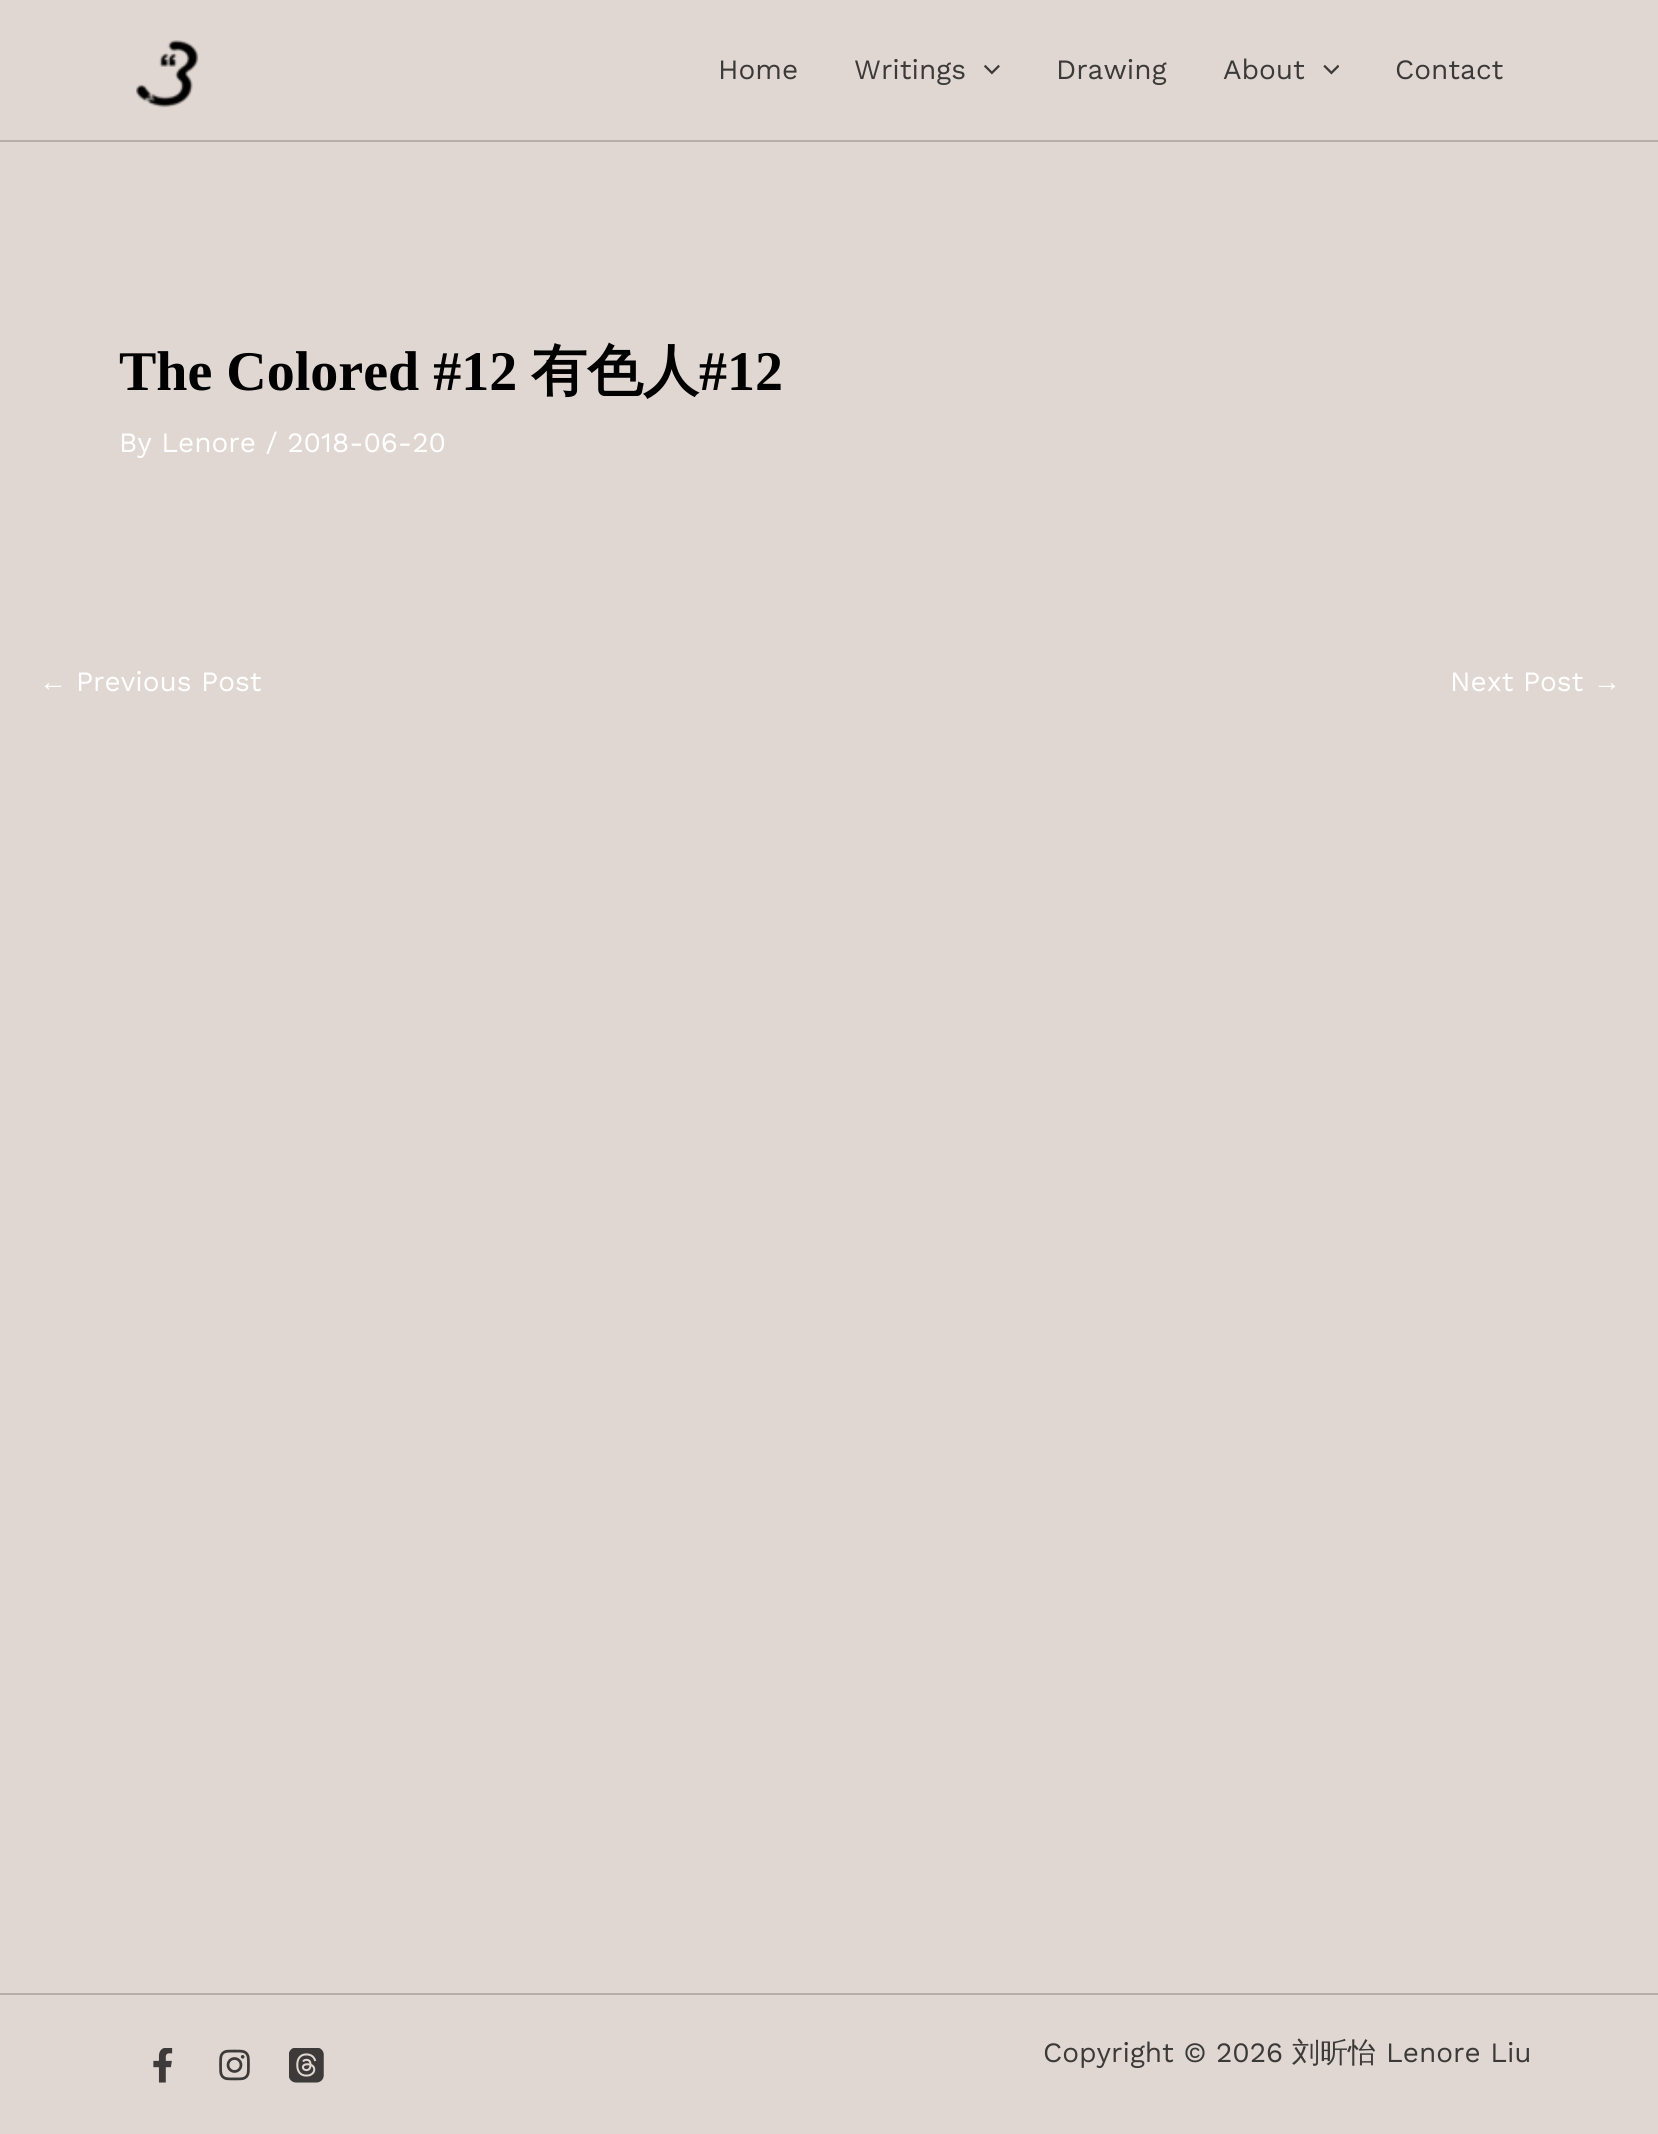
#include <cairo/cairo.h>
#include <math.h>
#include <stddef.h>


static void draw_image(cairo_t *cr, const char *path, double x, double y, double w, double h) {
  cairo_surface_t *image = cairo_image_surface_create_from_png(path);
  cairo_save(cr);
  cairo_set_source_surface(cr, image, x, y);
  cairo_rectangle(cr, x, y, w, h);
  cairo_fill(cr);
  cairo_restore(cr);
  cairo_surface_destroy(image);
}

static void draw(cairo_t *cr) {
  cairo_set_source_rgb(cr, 224 / 255.0, 215 / 255.0, 210 / 255.0);
  cairo_paint(cr);
  cairo_set_source_rgb(cr, 181 / 255.0, 174 / 255.0, 170 / 255.0);
  cairo_rectangle(cr, 0, 140, 1658, 2);
  cairo_fill(cr);
  draw_image(cr, "images/1.png", 136, 40, 63, 68);
  draw_image(cr, "images/2.png", 984, 64, 16, 11);
  draw_image(cr, "images/3.png", 1323, 64, 16, 11);
  cairo_rectangle(cr, 0, 1993, 1658, 2);
  cairo_fill(cr);
  draw_image(cr, "images/4.png", 153, 2048, 20, 35);
  draw_image(cr, "images/5.png", 219, 2049, 31, 32);
  draw_image(cr, "images/6.png", 289, 2048, 35, 35);
  cairo_select_font_face(cr, "Work Sans", CAIRO_FONT_SLANT_NORMAL, CAIRO_FONT_WEIGHT_NORMAL);
  cairo_set_font_size(cr, 28);
  cairo_set_source_rgb(cr, 60 / 255.0, 58 / 255.0, 57 / 255.0);
  cairo_move_to(cr, 718, 79);
  cairo_show_text(cr, "Home");
  cairo_move_to(cr, 854, 79);
  cairo_show_text(cr, "Writings");
  cairo_move_to(cr, 1056, 79);
  cairo_show_text(cr, "Drawing");
  cairo_move_to(cr, 1223, 79);
  cairo_show_text(cr, "About");
  cairo_move_to(cr, 1395, 79);
  cairo_show_text(cr, "Contact");
  cairo_select_font_face(cr, "Liberation Serif", CAIRO_FONT_SLANT_NORMAL, CAIRO_FONT_WEIGHT_BOLD);
  cairo_set_font_size(cr, 56);
  cairo_set_source_rgb(cr, 0, 0, 0);
  cairo_move_to(cr, 119, 390);
  cairo_show_text(cr, "The Colored #12");
  cairo_select_font_face(cr, "WenQuanYi Zen Hei", CAIRO_FONT_SLANT_NORMAL, CAIRO_FONT_WEIGHT_BOLD);
  cairo_move_to(cr, 531, 390);
  cairo_show_text(cr, "有色人");
  cairo_select_font_face(cr, "Liberation Serif", CAIRO_FONT_SLANT_NORMAL, CAIRO_FONT_WEIGHT_BOLD);
  cairo_move_to(cr, 699, 390);
  cairo_show_text(cr, "#12");
  cairo_select_font_face(cr, "Work Sans", CAIRO_FONT_SLANT_NORMAL, CAIRO_FONT_WEIGHT_NORMAL);
  cairo_set_font_size(cr, 28);
  cairo_set_source_rgb(cr, 1, 1, 1);
  cairo_move_to(cr, 119, 452);
  cairo_show_text(cr, "By Lenore / 2018-06-20");
  cairo_select_font_face(cr, "Liberation Sans", CAIRO_FONT_SLANT_NORMAL, CAIRO_FONT_WEIGHT_NORMAL);
  cairo_move_to(cr, 39, 691);
  cairo_show_text(cr, "←");
  cairo_select_font_face(cr, "Work Sans", CAIRO_FONT_SLANT_NORMAL, CAIRO_FONT_WEIGHT_NORMAL);
  cairo_move_to(cr, 76, 691);
  cairo_show_text(cr, "Previous Post");
  cairo_move_to(cr, 1450, 691);
  cairo_show_text(cr, "Next Post");
  cairo_select_font_face(cr, "Liberation Sans", CAIRO_FONT_SLANT_NORMAL, CAIRO_FONT_WEIGHT_NORMAL);
  cairo_move_to(cr, 1593, 691);
  cairo_show_text(cr, "→");
  cairo_select_font_face(cr, "Work Sans", CAIRO_FONT_SLANT_NORMAL, CAIRO_FONT_WEIGHT_NORMAL);
  cairo_set_source_rgb(cr, 60 / 255.0, 58 / 255.0, 57 / 255.0);
  cairo_move_to(cr, 1043, 2062);
  cairo_show_text(cr, "Copyright © 2026");
  cairo_select_font_face(cr, "WenQuanYi Zen Hei Medium", CAIRO_FONT_SLANT_NORMAL, CAIRO_FONT_WEIGHT_NORMAL);
  cairo_move_to(cr, 1292, 2062);
  cairo_show_text(cr, "刘昕怡");
  cairo_select_font_face(cr, "Work Sans", CAIRO_FONT_SLANT_NORMAL, CAIRO_FONT_WEIGHT_NORMAL);
  cairo_move_to(cr, 1386, 2062);
  cairo_show_text(cr, "Lenore Liu");
}

int main(void) {
  cairo_surface_t *surface = cairo_image_surface_create(CAIRO_FORMAT_RGB24, 1658, 2134);
  cairo_t *cr = cairo_create(surface);
  cairo_font_options_t *options = cairo_font_options_create();
  cairo_font_options_set_hint_metrics(options, CAIRO_HINT_METRICS_OFF);
  cairo_font_options_set_hint_style(options, CAIRO_HINT_STYLE_NONE);
  cairo_set_font_options(cr, options);
  cairo_set_miter_limit(cr, 4);
  draw(cr);
  cairo_surface_write_to_png(surface, "out.png");
  cairo_font_options_destroy(options);
  cairo_destroy(cr);
  cairo_surface_destroy(surface);
  return 0;
}
